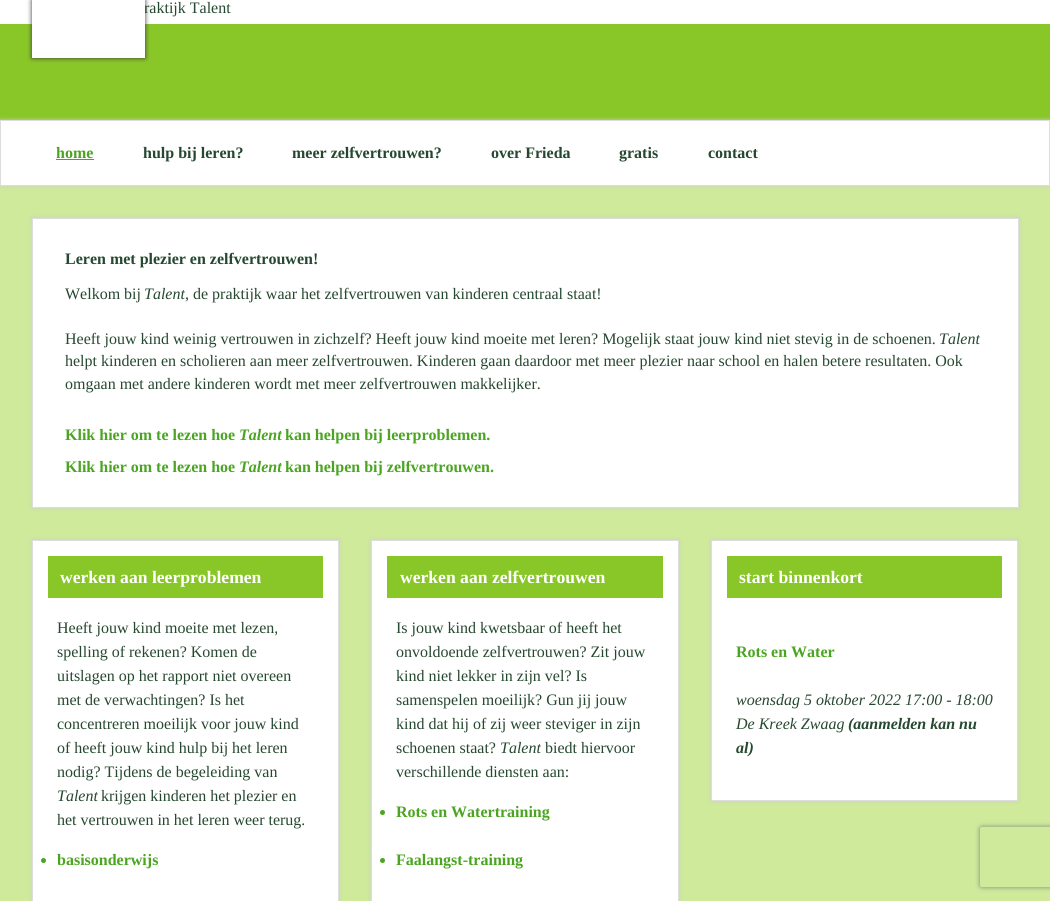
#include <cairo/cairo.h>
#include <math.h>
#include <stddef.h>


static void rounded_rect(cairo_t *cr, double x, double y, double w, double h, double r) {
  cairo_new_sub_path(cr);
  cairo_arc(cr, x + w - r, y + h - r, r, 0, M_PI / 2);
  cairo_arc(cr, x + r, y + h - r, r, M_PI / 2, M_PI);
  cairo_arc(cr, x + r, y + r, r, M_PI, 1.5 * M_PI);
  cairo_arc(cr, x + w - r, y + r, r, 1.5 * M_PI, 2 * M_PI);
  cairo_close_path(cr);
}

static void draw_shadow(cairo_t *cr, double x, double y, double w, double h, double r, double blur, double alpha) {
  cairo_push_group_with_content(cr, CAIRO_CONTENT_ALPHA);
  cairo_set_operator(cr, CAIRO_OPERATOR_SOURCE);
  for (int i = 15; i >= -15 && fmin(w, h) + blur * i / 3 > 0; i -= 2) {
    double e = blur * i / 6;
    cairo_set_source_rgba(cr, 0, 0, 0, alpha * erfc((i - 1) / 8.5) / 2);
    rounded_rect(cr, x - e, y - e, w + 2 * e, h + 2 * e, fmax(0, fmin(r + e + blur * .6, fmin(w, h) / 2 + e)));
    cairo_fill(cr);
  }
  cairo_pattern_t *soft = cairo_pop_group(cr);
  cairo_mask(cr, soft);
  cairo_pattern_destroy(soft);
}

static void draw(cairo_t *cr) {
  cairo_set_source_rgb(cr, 206 / 255.0, 234 / 255.0, 154 / 255.0);
  cairo_paint(cr);
  cairo_set_source_rgb(cr, 1, 1, 1);
  cairo_rectangle(cr, 0, 0, 1050, 24);
  cairo_fill(cr);
  cairo_set_source_rgb(cr, 137 / 255.0, 199 / 255.0, 40 / 255.0);
  cairo_rectangle(cr, 0, 24, 1050, 96);
  cairo_fill(cr);
  cairo_set_source_rgb(cr, 51 / 255.0, 51 / 255.0, 51 / 255.0);
  draw_shadow(cr, 32, 0, 113, 58, 0, 2.5, 1);
  cairo_set_source_rgb(cr, 204 / 255.0, 204 / 255.0, 204 / 255.0);
  draw_shadow(cr, 0, 120, 1050, 66, 0, 2, 1);
  cairo_set_source_rgb(cr, 1, 1, 1);
  cairo_rectangle(cr, 0.5, 120.5, 1049, 65);
  cairo_fill_preserve(cr);
  cairo_set_source_rgb(cr, 221 / 255.0, 221 / 255.0, 221 / 255.0);
  cairo_set_line_width(cr, 1);
  cairo_stroke(cr);
  cairo_set_source_rgb(cr, 75 / 255.0, 165 / 255.0, 33 / 255.0);
  cairo_rectangle(cr, 56, 159, 38, 1);
  cairo_fill(cr);
  cairo_set_source_rgb(cr, 204 / 255.0, 204 / 255.0, 204 / 255.0);
  draw_shadow(cr, 32, 218, 987, 290, 0, 2, 1);
  cairo_set_source_rgb(cr, 1, 1, 1);
  cairo_rectangle(cr, 32.5, 218.5, 986, 289);
  cairo_fill_preserve(cr);
  cairo_set_source_rgb(cr, 221 / 255.0, 221 / 255.0, 221 / 255.0);
  cairo_stroke(cr);
  cairo_set_source_rgb(cr, 204 / 255.0, 204 / 255.0, 204 / 255.0);
  draw_shadow(cr, 32, 540, 307, 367, 0, 2, 1);
  cairo_set_source_rgb(cr, 1, 1, 1);
  cairo_rectangle(cr, 32.5, 540.5, 306, 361);
  cairo_fill_preserve(cr);
  cairo_set_source_rgb(cr, 221 / 255.0, 221 / 255.0, 221 / 255.0);
  cairo_stroke(cr);
  cairo_set_source_rgb(cr, 137 / 255.0, 199 / 255.0, 40 / 255.0);
  cairo_rectangle(cr, 48, 556, 275, 42);
  cairo_fill(cr);
  cairo_set_source_rgb(cr, 75 / 255.0, 165 / 255.0, 33 / 255.0);
  cairo_arc(cr, 43.5, 860.5, 2.5, 0, 2 * M_PI);
  cairo_fill(cr);
  cairo_set_source_rgb(cr, 204 / 255.0, 204 / 255.0, 204 / 255.0);
  draw_shadow(cr, 371, 540, 308, 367, 0, 2, 1);
  cairo_set_source_rgb(cr, 1, 1, 1);
  cairo_rectangle(cr, 371.5, 540.5, 307, 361);
  cairo_fill_preserve(cr);
  cairo_set_source_rgb(cr, 221 / 255.0, 221 / 255.0, 221 / 255.0);
  cairo_stroke(cr);
  cairo_set_source_rgb(cr, 137 / 255.0, 199 / 255.0, 40 / 255.0);
  cairo_rectangle(cr, 387, 556, 276, 42);
  cairo_fill(cr);
  cairo_set_source_rgb(cr, 75 / 255.0, 165 / 255.0, 33 / 255.0);
  cairo_arc(cr, 382.5, 812.5, 2.5, 0, 2 * M_PI);
  cairo_fill(cr);
  cairo_arc(cr, 382.5, 860.5, 2.5, 0, 2 * M_PI);
  cairo_fill(cr);
  cairo_set_source_rgb(cr, 204 / 255.0, 204 / 255.0, 204 / 255.0);
  draw_shadow(cr, 711, 540, 307, 261, 0, 2, 1);
  cairo_set_source_rgb(cr, 1, 1, 1);
  cairo_rectangle(cr, 711.5, 540.5, 306, 260);
  cairo_fill_preserve(cr);
  cairo_set_source_rgb(cr, 221 / 255.0, 221 / 255.0, 221 / 255.0);
  cairo_stroke(cr);
  cairo_set_source_rgb(cr, 137 / 255.0, 199 / 255.0, 40 / 255.0);
  cairo_rectangle(cr, 727, 556, 275, 42);
  cairo_fill(cr);
  cairo_save(cr);
  cairo_set_fill_rule(cr, CAIRO_FILL_RULE_EVEN_ODD);
  cairo_new_path(cr);
  cairo_move_to(cr, 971, 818);
  cairo_line_to(cr, 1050, 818);
  cairo_line_to(cr, 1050, 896);
  cairo_line_to(cr, 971, 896);
  cairo_close_path(cr);
  cairo_move_to(cr, 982, 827);
  cairo_line_to(cr, 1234, 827);
  cairo_curve_to(cr, 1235, 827, 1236, 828, 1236, 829);
  cairo_line_to(cr, 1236, 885);
  cairo_curve_to(cr, 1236, 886, 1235, 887, 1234, 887);
  cairo_line_to(cr, 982, 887);
  cairo_curve_to(cr, 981, 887, 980, 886, 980, 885);
  cairo_line_to(cr, 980, 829);
  cairo_curve_to(cr, 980, 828, 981, 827, 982, 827);
  cairo_close_path(cr);
  cairo_clip(cr);
  cairo_set_source_rgb(cr, 128 / 255.0, 128 / 255.0, 128 / 255.0);
  draw_shadow(cr, 980, 827, 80, 60, 2, 2.5, 1);
  cairo_restore(cr);
  cairo_select_font_face(cr, "Liberation Serif", CAIRO_FONT_SLANT_NORMAL, CAIRO_FONT_WEIGHT_NORMAL);
  cairo_set_font_size(cr, 16);
  cairo_set_source_rgb(cr, 38 / 255.0, 72 / 255.0, 48 / 255.0);
  cairo_move_to(cr, 144, 13);
  cairo_show_text(cr, "raktijk Talent");
  cairo_set_source_rgb(cr, 1, 1, 1);
  cairo_rectangle(cr, 32, 0, 113, 58);
  cairo_fill(cr);
  cairo_select_font_face(cr, "Liberation Serif", CAIRO_FONT_SLANT_NORMAL, CAIRO_FONT_WEIGHT_BOLD);
  cairo_set_source_rgb(cr, 75 / 255.0, 165 / 255.0, 33 / 255.0);
  cairo_move_to(cr, 56, 158);
  cairo_show_text(cr, "home");
  cairo_set_source_rgb(cr, 38 / 255.0, 72 / 255.0, 48 / 255.0);
  cairo_move_to(cr, 143, 158);
  cairo_show_text(cr, "hulp bij leren?");
  cairo_move_to(cr, 292, 158);
  cairo_show_text(cr, "meer zelfvertrouwen?");
  cairo_move_to(cr, 491, 158);
  cairo_show_text(cr, "over Frieda");
  cairo_move_to(cr, 619, 158);
  cairo_show_text(cr, "gratis");
  cairo_move_to(cr, 708, 158);
  cairo_show_text(cr, "contact");
  cairo_move_to(cr, 65, 264);
  cairo_show_text(cr, "Leren met plezier en zelfvertrouwen!");
  cairo_select_font_face(cr, "Liberation Serif", CAIRO_FONT_SLANT_NORMAL, CAIRO_FONT_WEIGHT_NORMAL);
  cairo_move_to(cr, 65, 299);
  cairo_show_text(cr, "Welkom bij");
  cairo_select_font_face(cr, "Liberation Serif", CAIRO_FONT_SLANT_ITALIC, CAIRO_FONT_WEIGHT_NORMAL);
  cairo_move_to(cr, 144, 299);
  cairo_show_text(cr, "Talent");
  cairo_select_font_face(cr, "Liberation Serif", CAIRO_FONT_SLANT_NORMAL, CAIRO_FONT_WEIGHT_NORMAL);
  cairo_move_to(cr, 185, 299);
  cairo_show_text(cr, ", de praktijk waar het zelfvertrouwen van kinderen centraal staat!");
  cairo_move_to(cr, 65, 344);
  cairo_show_text(cr, "Heeft jouw kind weinig vertrouwen in zichzelf? Heeft jouw kind moeite met leren? Mogelijk staat jouw kind niet stevig in de schoenen.");
  cairo_select_font_face(cr, "Liberation Serif", CAIRO_FONT_SLANT_ITALIC, CAIRO_FONT_WEIGHT_NORMAL);
  cairo_move_to(cr, 939, 344);
  cairo_show_text(cr, "Talent");
  cairo_select_font_face(cr, "Liberation Serif", CAIRO_FONT_SLANT_NORMAL, CAIRO_FONT_WEIGHT_NORMAL);
  cairo_move_to(cr, 65, 366);
  cairo_show_text(cr, "helpt kinderen en scholieren aan meer zelfvertrouwen. Kinderen gaan daardoor met meer plezier naar school en halen betere resultaten. Ook");
  cairo_move_to(cr, 65, 389);
  cairo_show_text(cr, "omgaan met andere kinderen wordt met meer zelfvertrouwen makkelijker.");
  cairo_select_font_face(cr, "Liberation Serif", CAIRO_FONT_SLANT_NORMAL, CAIRO_FONT_WEIGHT_BOLD);
  cairo_set_source_rgb(cr, 75 / 255.0, 165 / 255.0, 33 / 255.0);
  cairo_move_to(cr, 65, 440);
  cairo_show_text(cr, "Klik hier om te lezen hoe");
  cairo_select_font_face(cr, "Liberation Serif", CAIRO_FONT_SLANT_ITALIC, CAIRO_FONT_WEIGHT_BOLD);
  cairo_move_to(cr, 239, 440);
  cairo_show_text(cr, "Talent");
  cairo_select_font_face(cr, "Liberation Serif", CAIRO_FONT_SLANT_NORMAL, CAIRO_FONT_WEIGHT_BOLD);
  cairo_move_to(cr, 285, 440);
  cairo_show_text(cr, "kan helpen bij leerproblemen.");
  cairo_move_to(cr, 65, 472);
  cairo_show_text(cr, "Klik hier om te lezen hoe");
  cairo_select_font_face(cr, "Liberation Serif", CAIRO_FONT_SLANT_ITALIC, CAIRO_FONT_WEIGHT_BOLD);
  cairo_move_to(cr, 239, 472);
  cairo_show_text(cr, "Talent");
  cairo_select_font_face(cr, "Liberation Serif", CAIRO_FONT_SLANT_NORMAL, CAIRO_FONT_WEIGHT_BOLD);
  cairo_move_to(cr, 285, 472);
  cairo_show_text(cr, "kan helpen bij zelfvertrouwen.");
  cairo_set_font_size(cr, 17.6);
  cairo_set_source_rgb(cr, 1, 1, 1);
  cairo_move_to(cr, 60, 583);
  cairo_show_text(cr, "werken aan leerproblemen");
  cairo_select_font_face(cr, "Liberation Serif", CAIRO_FONT_SLANT_NORMAL, CAIRO_FONT_WEIGHT_NORMAL);
  cairo_set_font_size(cr, 16);
  cairo_set_source_rgb(cr, 38 / 255.0, 72 / 255.0, 48 / 255.0);
  cairo_move_to(cr, 57, 633);
  cairo_show_text(cr, "Heeft jouw kind moeite met lezen,");
  cairo_move_to(cr, 57, 657);
  cairo_show_text(cr, "spelling of rekenen? Komen de");
  cairo_move_to(cr, 57, 681);
  cairo_show_text(cr, "uitslagen op het rapport niet overeen");
  cairo_move_to(cr, 57, 705);
  cairo_show_text(cr, "met de verwachtingen? Is het");
  cairo_move_to(cr, 57, 729);
  cairo_show_text(cr, "concentreren moeilijk voor jouw kind");
  cairo_move_to(cr, 57, 753);
  cairo_show_text(cr, "of heeft jouw kind hulp bij het leren");
  cairo_move_to(cr, 57, 777);
  cairo_show_text(cr, "nodig? Tijdens de begeleiding van");
  cairo_select_font_face(cr, "Liberation Serif", CAIRO_FONT_SLANT_ITALIC, CAIRO_FONT_WEIGHT_NORMAL);
  cairo_move_to(cr, 57, 801);
  cairo_show_text(cr, "Talent");
  cairo_select_font_face(cr, "Liberation Serif", CAIRO_FONT_SLANT_NORMAL, CAIRO_FONT_WEIGHT_NORMAL);
  cairo_move_to(cr, 101, 801);
  cairo_show_text(cr, "krijgen kinderen het plezier en");
  cairo_move_to(cr, 57, 825);
  cairo_show_text(cr, "het vertrouwen in het leren weer terug.");
  cairo_select_font_face(cr, "Liberation Serif", CAIRO_FONT_SLANT_NORMAL, CAIRO_FONT_WEIGHT_BOLD);
  cairo_set_source_rgb(cr, 75 / 255.0, 165 / 255.0, 33 / 255.0);
  cairo_move_to(cr, 57, 865);
  cairo_show_text(cr, "basisonderwijs");
  cairo_set_font_size(cr, 17.6);
  cairo_set_source_rgb(cr, 1, 1, 1);
  cairo_move_to(cr, 400, 583);
  cairo_show_text(cr, "werken aan zelfvertrouwen");
  cairo_select_font_face(cr, "Liberation Serif", CAIRO_FONT_SLANT_NORMAL, CAIRO_FONT_WEIGHT_NORMAL);
  cairo_set_font_size(cr, 16);
  cairo_set_source_rgb(cr, 38 / 255.0, 72 / 255.0, 48 / 255.0);
  cairo_move_to(cr, 396, 633);
  cairo_show_text(cr, "Is jouw kind kwetsbaar of heeft het");
  cairo_move_to(cr, 396, 657);
  cairo_show_text(cr, "onvoldoende zelfvertrouwen? Zit jouw");
  cairo_move_to(cr, 396, 681);
  cairo_show_text(cr, "kind niet lekker in zijn vel? Is");
  cairo_move_to(cr, 396, 705);
  cairo_show_text(cr, "samenspelen moeilijk? Gun jij jouw");
  cairo_move_to(cr, 396, 729);
  cairo_show_text(cr, "kind dat hij of zij weer steviger in zijn");
  cairo_move_to(cr, 396, 753);
  cairo_show_text(cr, "schoenen staat?");
  cairo_select_font_face(cr, "Liberation Serif", CAIRO_FONT_SLANT_ITALIC, CAIRO_FONT_WEIGHT_NORMAL);
  cairo_move_to(cr, 500, 753);
  cairo_show_text(cr, "Talent");
  cairo_select_font_face(cr, "Liberation Serif", CAIRO_FONT_SLANT_NORMAL, CAIRO_FONT_WEIGHT_NORMAL);
  cairo_move_to(cr, 545, 753);
  cairo_show_text(cr, "biedt hiervoor");
  cairo_move_to(cr, 396, 777);
  cairo_show_text(cr, "verschillende diensten aan:");
  cairo_select_font_face(cr, "Liberation Serif", CAIRO_FONT_SLANT_NORMAL, CAIRO_FONT_WEIGHT_BOLD);
  cairo_set_source_rgb(cr, 75 / 255.0, 165 / 255.0, 33 / 255.0);
  cairo_move_to(cr, 396, 817);
  cairo_show_text(cr, "Rots en Watertraining");
  cairo_move_to(cr, 396, 865);
  cairo_show_text(cr, "Faalangst-training");
  cairo_set_font_size(cr, 17.6);
  cairo_set_source_rgb(cr, 1, 1, 1);
  cairo_move_to(cr, 739, 583);
  cairo_show_text(cr, "start binnenkort");
  cairo_set_font_size(cr, 16);
  cairo_set_source_rgb(cr, 75 / 255.0, 165 / 255.0, 33 / 255.0);
  cairo_move_to(cr, 736, 657);
  cairo_show_text(cr, "Rots en Water");
  cairo_select_font_face(cr, "Liberation Serif", CAIRO_FONT_SLANT_ITALIC, CAIRO_FONT_WEIGHT_NORMAL);
  cairo_set_source_rgb(cr, 38 / 255.0, 72 / 255.0, 48 / 255.0);
  cairo_move_to(cr, 736, 705);
  cairo_show_text(cr, "woensdag 5 oktober 2022 17:00 - 18:00");
  cairo_move_to(cr, 736, 729);
  cairo_show_text(cr, "De Kreek Zwaag");
  cairo_select_font_face(cr, "Liberation Serif", CAIRO_FONT_SLANT_ITALIC, CAIRO_FONT_WEIGHT_BOLD);
  cairo_move_to(cr, 848, 729);
  cairo_show_text(cr, "(aanmelden kan nu");
  cairo_move_to(cr, 736, 753);
  cairo_show_text(cr, "al)");
}

int main(void) {
  cairo_surface_t *surface = cairo_image_surface_create(CAIRO_FORMAT_RGB24, 1050, 901);
  cairo_t *cr = cairo_create(surface);
  cairo_font_options_t *options = cairo_font_options_create();
  cairo_font_options_set_hint_metrics(options, CAIRO_HINT_METRICS_OFF);
  cairo_font_options_set_hint_style(options, CAIRO_HINT_STYLE_NONE);
  cairo_set_font_options(cr, options);
  cairo_set_miter_limit(cr, 4);
  draw(cr);
  cairo_surface_write_to_png(surface, "out.png");
  cairo_font_options_destroy(options);
  cairo_destroy(cr);
  cairo_surface_destroy(surface);
  return 0;
}
